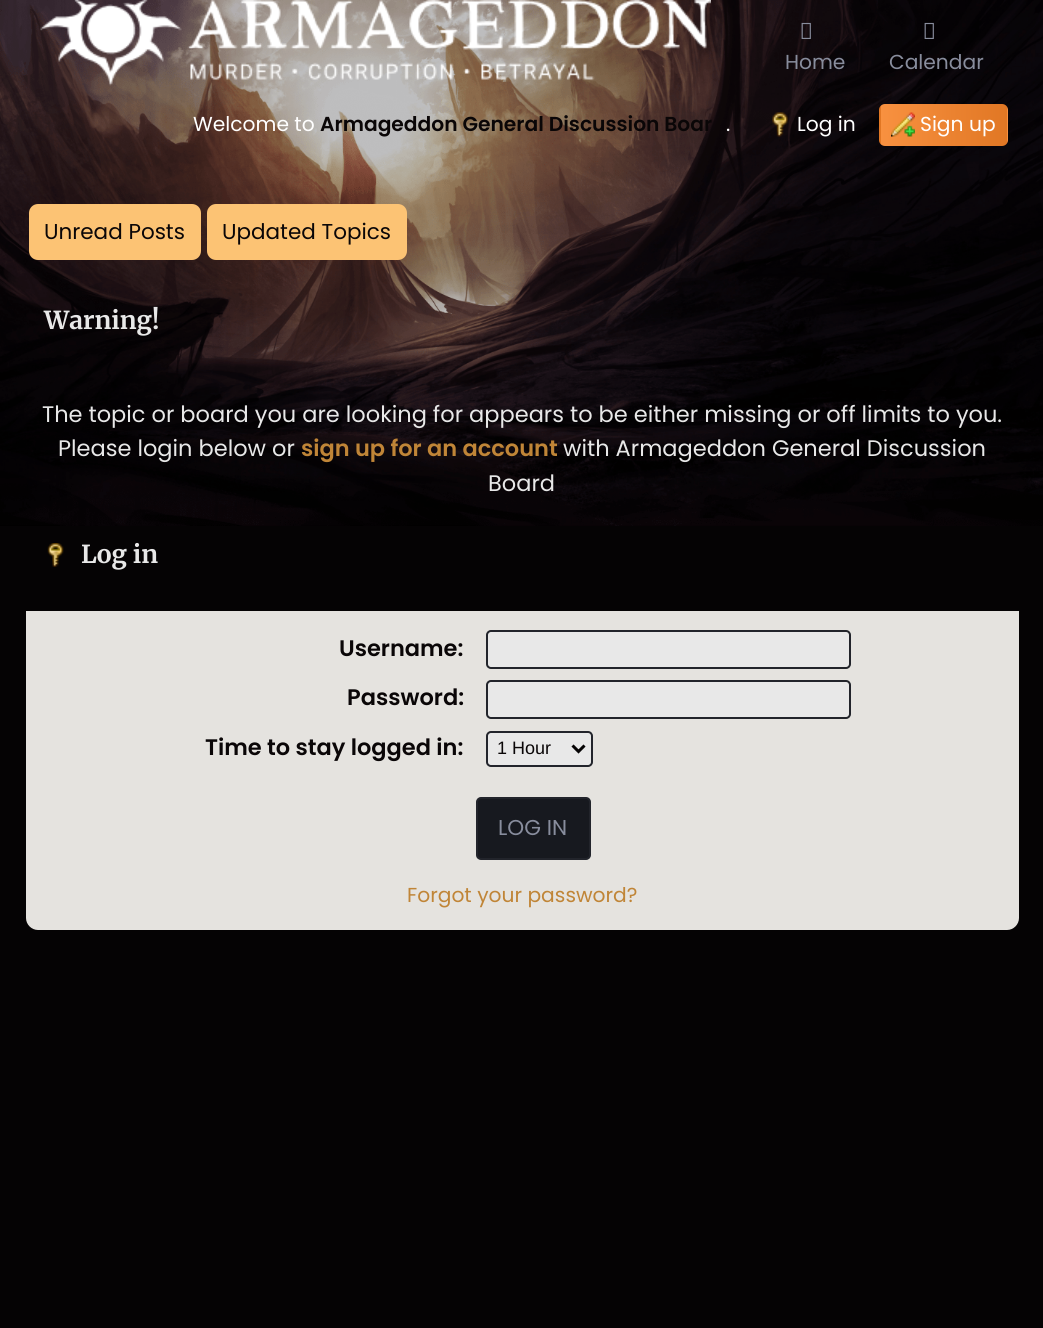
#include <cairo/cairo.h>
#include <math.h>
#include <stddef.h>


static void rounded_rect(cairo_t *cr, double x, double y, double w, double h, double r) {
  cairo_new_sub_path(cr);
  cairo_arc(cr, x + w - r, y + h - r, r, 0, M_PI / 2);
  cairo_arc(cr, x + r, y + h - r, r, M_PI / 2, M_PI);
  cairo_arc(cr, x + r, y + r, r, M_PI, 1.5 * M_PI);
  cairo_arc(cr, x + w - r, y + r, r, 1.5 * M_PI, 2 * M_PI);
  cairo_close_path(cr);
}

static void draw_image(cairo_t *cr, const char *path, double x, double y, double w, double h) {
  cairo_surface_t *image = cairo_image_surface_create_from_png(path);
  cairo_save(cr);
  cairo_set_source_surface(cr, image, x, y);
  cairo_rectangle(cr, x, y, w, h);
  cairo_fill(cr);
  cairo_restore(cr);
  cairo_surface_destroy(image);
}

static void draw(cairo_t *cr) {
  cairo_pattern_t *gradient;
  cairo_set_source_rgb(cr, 5 / 255.0, 3 / 255.0, 4 / 255.0);
  cairo_paint(cr);
  draw_image(cr, "images/1.png", 0, 0, 1043, 526);
  draw_image(cr, "images/2.png", 40, 0, 671, 86);
  draw_image(cr, "images/3.png", 801, 22, 10, 17);
  draw_image(cr, "images/4.png", 924, 22, 10, 17);
  draw_image(cr, "images/5.png", 772, 112, 16, 25);
  cairo_save(cr);
  rounded_rect(cr, 879, 104, 129, 42, 6);
  cairo_clip(cr);
  gradient = cairo_pattern_create_linear(755, 125, 881, 125);
  cairo_pattern_add_color_stop_rgba(gradient, 0, 248 / 255.0, 145 / 255.0, 64 / 255.0, 1);
  cairo_pattern_add_color_stop_rgba(gradient, 1, 225 / 255.0, 119 / 255.0, 36 / 255.0, 1);
  cairo_set_source(cr, gradient);
  cairo_pattern_destroy(gradient);
  cairo_rectangle(cr, 879, 104, 2, 42);
  cairo_fill(cr);
  gradient = cairo_pattern_create_linear(881, 125, 1007, 125);
  cairo_pattern_add_color_stop_rgba(gradient, 0, 248 / 255.0, 145 / 255.0, 64 / 255.0, 1);
  cairo_pattern_add_color_stop_rgba(gradient, 1, 225 / 255.0, 119 / 255.0, 36 / 255.0, 1);
  cairo_set_source(cr, gradient);
  cairo_pattern_destroy(gradient);
  cairo_rectangle(cr, 881, 104, 126, 42);
  cairo_fill(cr);
  gradient = cairo_pattern_create_linear(1007, 125, 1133, 125);
  cairo_pattern_add_color_stop_rgba(gradient, 0, 248 / 255.0, 145 / 255.0, 64 / 255.0, 1);
  cairo_pattern_add_color_stop_rgba(gradient, 1, 225 / 255.0, 119 / 255.0, 36 / 255.0, 1);
  cairo_set_source(cr, gradient);
  cairo_pattern_destroy(gradient);
  cairo_rectangle(cr, 1007, 104, 1, 42);
  cairo_fill(cr);
  cairo_restore(cr);
  draw_image(cr, "images/6.png", 891, 112, 24, 25);
  cairo_set_source_rgb(cr, 252 / 255.0, 195 / 255.0, 116 / 255.0);
  rounded_rect(cr, 29, 204, 172, 56, 9);
  cairo_fill(cr);
  rounded_rect(cr, 207, 204, 200, 56, 9);
  cairo_fill(cr);
  draw_image(cr, "images/7.png", 47, 543, 17, 24);
  cairo_set_source_rgb(cr, 229 / 255.0, 227 / 255.0, 223 / 255.0);
  cairo_new_path(cr);
  cairo_move_to(cr, 26, 611);
  cairo_line_to(cr, 1019, 611);
  cairo_line_to(cr, 1019, 918);
  cairo_curve_to(cr, 1019, 924.5, 1013.5, 930, 1007, 930);
  cairo_line_to(cr, 38, 930);
  cairo_curve_to(cr, 31.5, 930, 26, 924.5, 26, 918);
  cairo_close_path(cr);
  cairo_fill(cr);
  cairo_set_source_rgb(cr, 232 / 255.0, 232 / 255.0, 232 / 255.0);
  rounded_rect(cr, 487, 631, 363, 37, 4);
  cairo_fill_preserve(cr);
  cairo_set_source_rgb(cr, 34 / 255.0, 36 / 255.0, 43 / 255.0);
  cairo_stroke(cr);
  cairo_set_source_rgb(cr, 232 / 255.0, 232 / 255.0, 232 / 255.0);
  rounded_rect(cr, 487, 681, 363, 37, 4);
  cairo_fill_preserve(cr);
  cairo_set_source_rgb(cr, 34 / 255.0, 36 / 255.0, 43 / 255.0);
  cairo_stroke(cr);
  cairo_set_source_rgb(cr, 232 / 255.0, 232 / 255.0, 232 / 255.0);
  rounded_rect(cr, 487, 732, 105, 34, 4);
  cairo_fill_preserve(cr);
  cairo_set_source_rgb(cr, 34 / 255.0, 36 / 255.0, 43 / 255.0);
  cairo_stroke(cr);
  cairo_new_path(cr);
  cairo_move_to(cr, 572.5, 745.5);
  cairo_line_to(cr, 578.5, 751.5);
  cairo_line_to(cr, 584.5, 745.5);
  cairo_set_source_rgb(cr, 5 / 255.0, 3 / 255.0, 4 / 255.0);
  cairo_set_line_width(cr, 3);
  cairo_stroke(cr);
  cairo_set_source_rgb(cr, 23 / 255.0, 25 / 255.0, 31 / 255.0);
  rounded_rect(cr, 477, 798, 113, 61, 4);
  cairo_fill_preserve(cr);
  cairo_set_source_rgb(cr, 34 / 255.0, 36 / 255.0, 43 / 255.0);
  cairo_set_line_width(cr, 2);
  cairo_stroke(cr);
  cairo_select_font_face(cr, "Poppins", CAIRO_FONT_SLANT_NORMAL, CAIRO_FONT_WEIGHT_NORMAL);
  cairo_set_font_size(cr, 20.25);
  cairo_set_source_rgb(cr, 136 / 255.0, 141 / 255.0, 157 / 255.0);
  cairo_move_to(cr, 785, 69);
  cairo_show_text(cr, "Home");
  cairo_move_to(cr, 889, 69);
  cairo_show_text(cr, "Calendar");
  cairo_set_source_rgb(cr, 1, 1, 1);
  cairo_move_to(cr, 193, 131);
  cairo_show_text(cr, "Welcome to");
  cairo_select_font_face(cr, "Poppins SemiBold", CAIRO_FONT_SLANT_NORMAL, CAIRO_FONT_WEIGHT_NORMAL);
  cairo_set_source_rgb(cr, 10 / 255.0, 6 / 255.0, 7 / 255.0);
  cairo_move_to(cr, 320, 131);
  cairo_show_text(cr, "Armageddon General Discussion Boar");
  cairo_select_font_face(cr, "Poppins", CAIRO_FONT_SLANT_NORMAL, CAIRO_FONT_WEIGHT_NORMAL);
  cairo_set_source_rgb(cr, 1, 1, 1);
  cairo_move_to(cr, 726, 131);
  cairo_show_text(cr, ".");
  cairo_move_to(cr, 797, 131);
  cairo_show_text(cr, "Log in");
  cairo_move_to(cr, 920, 131);
  cairo_show_text(cr, "Sign up");
  cairo_set_font_size(cr, 21.5);
  cairo_set_source_rgb(cr, 10 / 255.0, 6 / 255.0, 7 / 255.0);
  cairo_move_to(cr, 44, 239);
  cairo_show_text(cr, "Unread Posts");
  cairo_move_to(cr, 222, 239);
  cairo_show_text(cr, "Updated Topics");
  cairo_select_font_face(cr, "Merriweather Light", CAIRO_FONT_SLANT_NORMAL, CAIRO_FONT_WEIGHT_NORMAL);
  cairo_set_font_size(cr, 24.75);
  cairo_set_source_rgb(cr, 232 / 255.0, 232 / 255.0, 232 / 255.0);
  cairo_move_to(cr, 44, 329);
  cairo_show_text(cr, "Warning!");
  cairo_select_font_face(cr, "Poppins", CAIRO_FONT_SLANT_NORMAL, CAIRO_FONT_WEIGHT_NORMAL);
  cairo_set_font_size(cr, 22.5);
  cairo_move_to(cr, 42, 422);
  cairo_show_text(cr, "The topic or board you are looking for appears to be either missing or off limits to you.");
  cairo_move_to(cr, 58, 456);
  cairo_show_text(cr, "Please login below or");
  cairo_select_font_face(cr, "Poppins SemiBold", CAIRO_FONT_SLANT_NORMAL, CAIRO_FONT_WEIGHT_NORMAL);
  cairo_set_source_rgb(cr, 192 / 255.0, 133 / 255.0, 55 / 255.0);
  cairo_move_to(cr, 301, 456);
  cairo_show_text(cr, "sign up for an account");
  cairo_select_font_face(cr, "Poppins", CAIRO_FONT_SLANT_NORMAL, CAIRO_FONT_WEIGHT_NORMAL);
  cairo_set_source_rgb(cr, 232 / 255.0, 232 / 255.0, 232 / 255.0);
  cairo_move_to(cr, 563, 456);
  cairo_show_text(cr, "with Armageddon General Discussion");
  cairo_move_to(cr, 488, 491);
  cairo_show_text(cr, "Board");
  cairo_select_font_face(cr, "Merriweather Light", CAIRO_FONT_SLANT_NORMAL, CAIRO_FONT_WEIGHT_NORMAL);
  cairo_set_font_size(cr, 24.75);
  cairo_move_to(cr, 81, 563);
  cairo_show_text(cr, "Log in");
  cairo_select_font_face(cr, "Poppins SemiBold", CAIRO_FONT_SLANT_NORMAL, CAIRO_FONT_WEIGHT_NORMAL);
  cairo_set_font_size(cr, 22.5);
  cairo_set_source_rgb(cr, 10 / 255.0, 6 / 255.0, 7 / 255.0);
  cairo_move_to(cr, 339, 656);
  cairo_show_text(cr, "Username:");
  cairo_move_to(cr, 347, 705);
  cairo_show_text(cr, "Password:");
  cairo_move_to(cr, 205, 755);
  cairo_show_text(cr, "Time to stay logged in:");
  cairo_select_font_face(cr, "Liberation Sans", CAIRO_FONT_SLANT_NORMAL, CAIRO_FONT_WEIGHT_NORMAL);
  cairo_set_font_size(cr, 18);
  cairo_move_to(cr, 497, 754);
  cairo_show_text(cr, "1 Hour");
  cairo_select_font_face(cr, "Poppins", CAIRO_FONT_SLANT_NORMAL, CAIRO_FONT_WEIGHT_NORMAL);
  cairo_set_font_size(cr, 21.5);
  cairo_set_source_rgb(cr, 136 / 255.0, 141 / 255.0, 157 / 255.0);
  cairo_move_to(cr, 498, 835);
  cairo_show_text(cr, "LOG IN");
  cairo_set_font_size(cr, 20.25);
  cairo_set_source_rgb(cr, 192 / 255.0, 133 / 255.0, 55 / 255.0);
  cairo_move_to(cr, 407, 902);
  cairo_show_text(cr, "Forgot your password?");
}

int main(void) {
  cairo_surface_t *surface = cairo_image_surface_create(CAIRO_FORMAT_RGB24, 1043, 1328);
  cairo_t *cr = cairo_create(surface);
  cairo_font_options_t *options = cairo_font_options_create();
  cairo_font_options_set_hint_metrics(options, CAIRO_HINT_METRICS_OFF);
  cairo_font_options_set_hint_style(options, CAIRO_HINT_STYLE_NONE);
  cairo_set_font_options(cr, options);
  cairo_set_miter_limit(cr, 4);
  draw(cr);
  cairo_surface_write_to_png(surface, "out.png");
  cairo_font_options_destroy(options);
  cairo_destroy(cr);
  cairo_surface_destroy(surface);
  return 0;
}
